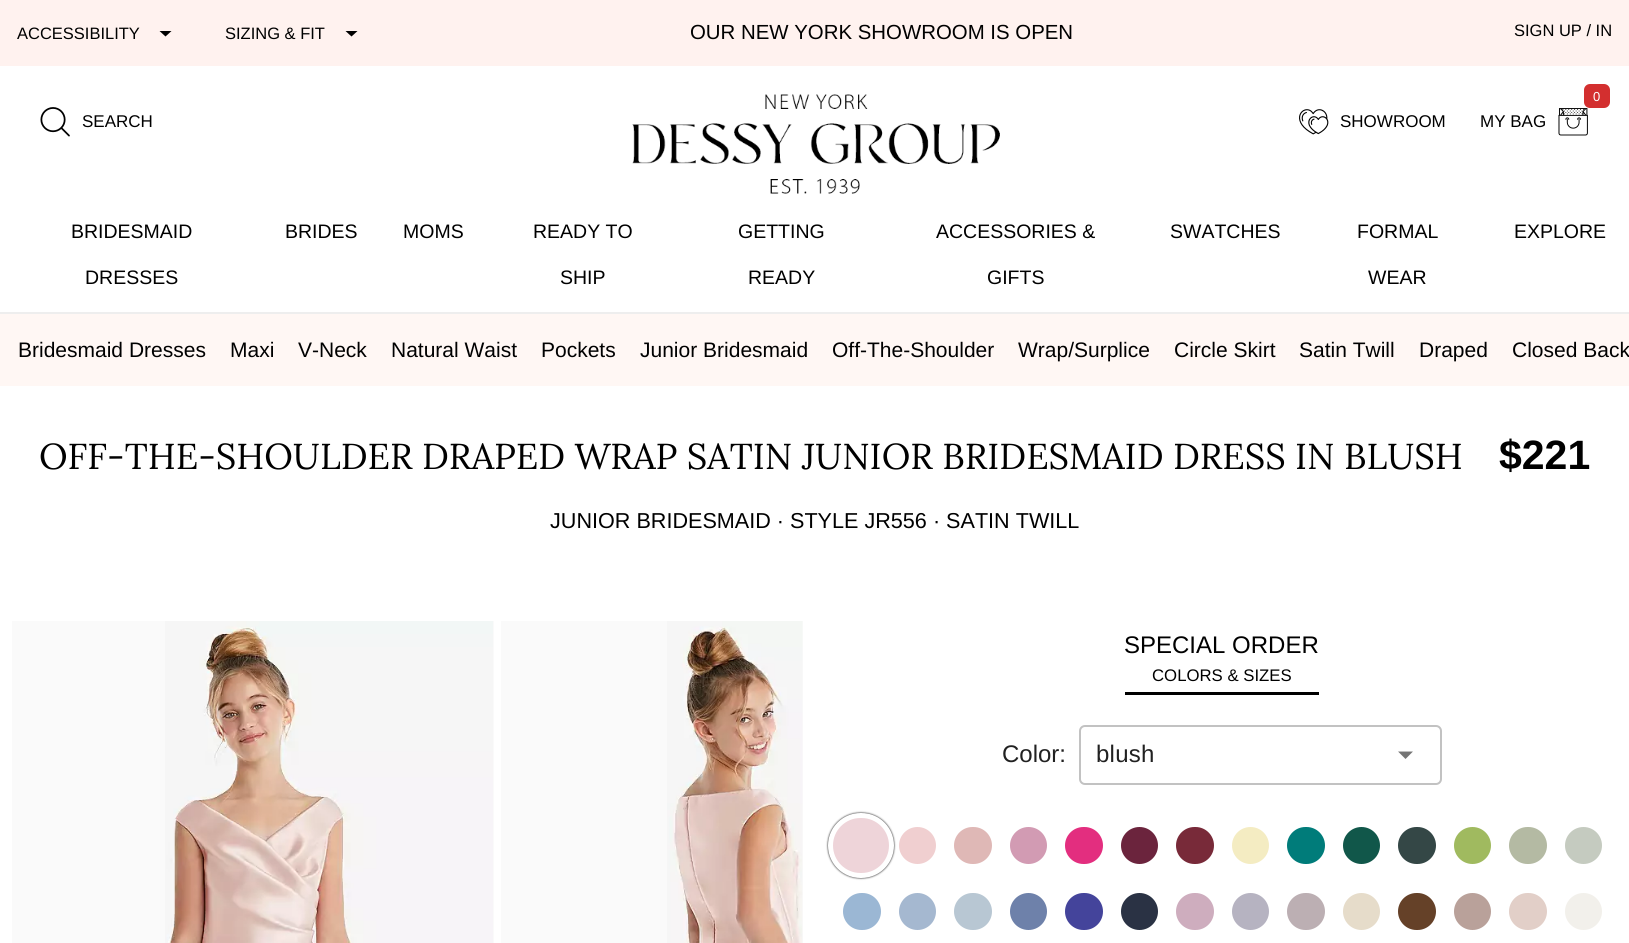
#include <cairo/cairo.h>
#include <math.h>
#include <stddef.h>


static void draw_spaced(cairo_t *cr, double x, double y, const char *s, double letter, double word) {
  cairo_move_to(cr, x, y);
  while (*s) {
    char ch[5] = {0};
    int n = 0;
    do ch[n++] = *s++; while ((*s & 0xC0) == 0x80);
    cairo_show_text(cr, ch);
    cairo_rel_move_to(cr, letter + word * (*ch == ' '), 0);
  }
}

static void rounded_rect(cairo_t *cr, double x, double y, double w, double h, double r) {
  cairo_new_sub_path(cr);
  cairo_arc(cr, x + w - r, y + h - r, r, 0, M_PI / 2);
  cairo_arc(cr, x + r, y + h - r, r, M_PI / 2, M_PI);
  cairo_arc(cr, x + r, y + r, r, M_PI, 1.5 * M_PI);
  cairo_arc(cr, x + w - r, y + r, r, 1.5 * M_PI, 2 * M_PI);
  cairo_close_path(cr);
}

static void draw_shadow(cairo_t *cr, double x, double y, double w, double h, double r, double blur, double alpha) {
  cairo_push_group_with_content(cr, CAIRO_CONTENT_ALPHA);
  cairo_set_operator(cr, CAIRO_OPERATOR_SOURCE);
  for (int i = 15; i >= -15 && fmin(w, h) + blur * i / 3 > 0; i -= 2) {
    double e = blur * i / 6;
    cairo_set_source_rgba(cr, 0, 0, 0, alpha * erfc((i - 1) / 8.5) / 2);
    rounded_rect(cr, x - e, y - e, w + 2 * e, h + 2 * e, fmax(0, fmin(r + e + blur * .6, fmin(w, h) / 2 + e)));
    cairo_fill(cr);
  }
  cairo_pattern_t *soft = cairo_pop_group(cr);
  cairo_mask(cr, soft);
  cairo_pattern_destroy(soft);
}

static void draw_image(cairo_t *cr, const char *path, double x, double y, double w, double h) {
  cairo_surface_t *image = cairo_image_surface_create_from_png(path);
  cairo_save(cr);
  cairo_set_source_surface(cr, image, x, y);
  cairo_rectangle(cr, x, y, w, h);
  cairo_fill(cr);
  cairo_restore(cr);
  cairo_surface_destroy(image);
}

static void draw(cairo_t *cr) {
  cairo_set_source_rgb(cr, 1, 1, 1);
  cairo_paint(cr);
  cairo_set_source_rgb(cr, 238 / 255.0, 238 / 255.0, 238 / 255.0);
  cairo_rectangle(cr, 0, 312, 1629, 2);
  cairo_fill(cr);
  cairo_set_source_rgb(cr, 1, 242 / 255.0, 239 / 255.0);
  cairo_rectangle(cr, 0, 0, 1629, 66);
  cairo_fill(cr);
  cairo_set_source_rgb(cr, 0, 0, 0);
  cairo_new_path(cr);
  cairo_move_to(cr, 159.5, 31);
  cairo_line_to(cr, 171.5, 31);
  cairo_line_to(cr, 165.5, 36.5);
  cairo_close_path(cr);
  cairo_fill(cr);
  cairo_new_path(cr);
  cairo_move_to(cr, 345.5, 31);
  cairo_line_to(cr, 357.5, 31);
  cairo_line_to(cr, 351.5, 36.5);
  cairo_close_path(cr);
  cairo_fill(cr);
  draw_image(cr, "images/1.png", 40, 107, 30, 30);
  draw_image(cr, "images/2.png", 632, 94, 368, 100);
  draw_image(cr, "images/3.png", 1299, 109, 30, 26);
  cairo_set_source_rgb(cr, 211 / 255.0, 47 / 255.0, 47 / 255.0);
  rounded_rect(cr, 1584, 84, 26, 24, 6);
  cairo_fill(cr);
  draw_image(cr, "images/4.png", 1558, 108, 30, 28);
  cairo_set_source_rgb(cr, 1, 247 / 255.0, 244 / 255.0);
  cairo_rectangle(cr, 0, 314, 1629, 72);
  cairo_fill(cr);
  cairo_set_source_rgb(cr, 250 / 255.0, 250 / 255.0, 250 / 255.0);
  cairo_rectangle(cr, 12, 621, 482, 322);
  cairo_fill(cr);
  draw_image(cr, "images/5.png", 165, 621, 328, 322);
  cairo_rectangle(cr, 501, 621, 302, 322);
  cairo_fill(cr);
  draw_image(cr, "images/6.png", 667, 621, 136, 322);
  cairo_set_source_rgb(cr, 0, 0, 0);
  cairo_rectangle(cr, 1125, 692, 194, 3);
  cairo_fill(cr);
  rounded_rect(cr, 1080, 726, 361, 58, 5);
  cairo_set_source_rgb(cr, 194 / 255.0, 194 / 255.0, 194 / 255.0);
  cairo_stroke(cr);
  cairo_set_source_rgb(cr, 117 / 255.0, 117 / 255.0, 117 / 255.0);
  cairo_new_path(cr);
  cairo_move_to(cr, 1398, 751.5);
  cairo_line_to(cr, 1413, 751.5);
  cairo_line_to(cr, 1405.5, 759);
  cairo_close_path(cr);
  cairo_fill(cr);
  cairo_set_source_rgb(cr, 240 / 255.0, 207 / 255.0, 208 / 255.0);
  cairo_arc(cr, 917.5, 845.5, 20, 0, 2 * M_PI);
  cairo_fill_preserve(cr);
  cairo_set_source_rgb(cr, 1, 1, 1);
  cairo_set_line_width(cr, 3);
  cairo_stroke(cr);
  cairo_set_source_rgb(cr, 0, 0, 0);
  draw_shadow(cr, 828, 813, 66, 65, 32.5, 1, 1);
  cairo_set_source_rgb(cr, 238 / 255.0, 212 / 255.0, 217 / 255.0);
  rounded_rect(cr, 830.5, 815.5, 61, 60, 30);
  cairo_fill_preserve(cr);
  cairo_set_source_rgb(cr, 1, 1, 1);
  cairo_set_line_width(cr, 5);
  cairo_stroke(cr);
  cairo_set_source_rgb(cr, 223 / 255.0, 184 / 255.0, 182 / 255.0);
  rounded_rect(cr, 952.5, 825.5, 41, 40, 20);
  cairo_fill_preserve(cr);
  cairo_set_source_rgb(cr, 1, 1, 1);
  cairo_set_line_width(cr, 3);
  cairo_stroke(cr);
  cairo_set_source_rgb(cr, 210 / 255.0, 155 / 255.0, 179 / 255.0);
  cairo_arc(cr, 1028.5, 845.5, 20, 0, 2 * M_PI);
  cairo_fill_preserve(cr);
  cairo_set_source_rgb(cr, 1, 1, 1);
  cairo_stroke(cr);
  cairo_set_source_rgb(cr, 227 / 255.0, 46 / 255.0, 127 / 255.0);
  rounded_rect(cr, 1063.5, 825.5, 41, 40, 20);
  cairo_fill_preserve(cr);
  cairo_set_source_rgb(cr, 1, 1, 1);
  cairo_stroke(cr);
  cairo_set_source_rgb(cr, 107 / 255.0, 36 / 255.0, 61 / 255.0);
  cairo_arc(cr, 1139.5, 845.5, 20, 0, 2 * M_PI);
  cairo_fill_preserve(cr);
  cairo_set_source_rgb(cr, 1, 1, 1);
  cairo_stroke(cr);
  cairo_set_source_rgb(cr, 120 / 255.0, 42 / 255.0, 57 / 255.0);
  rounded_rect(cr, 1174.5, 825.5, 41, 40, 20);
  cairo_fill_preserve(cr);
  cairo_set_source_rgb(cr, 1, 1, 1);
  cairo_stroke(cr);
  cairo_set_source_rgb(cr, 244 / 255.0, 236 / 255.0, 194 / 255.0);
  cairo_arc(cr, 1250.5, 845.5, 20, 0, 2 * M_PI);
  cairo_fill_preserve(cr);
  cairo_set_source_rgb(cr, 1, 1, 1);
  cairo_stroke(cr);
  cairo_set_source_rgb(cr, 0, 124 / 255.0, 122 / 255.0);
  rounded_rect(cr, 1285.5, 825.5, 41, 40, 20);
  cairo_fill_preserve(cr);
  cairo_set_source_rgb(cr, 1, 1, 1);
  cairo_stroke(cr);
  cairo_set_source_rgb(cr, 17 / 255.0, 87 / 255.0, 74 / 255.0);
  cairo_arc(cr, 1361.5, 845.5, 20, 0, 2 * M_PI);
  cairo_fill_preserve(cr);
  cairo_set_source_rgb(cr, 1, 1, 1);
  cairo_stroke(cr);
  cairo_set_source_rgb(cr, 52 / 255.0, 71 / 255.0, 70 / 255.0);
  rounded_rect(cr, 1396.5, 825.5, 41, 40, 20);
  cairo_fill_preserve(cr);
  cairo_set_source_rgb(cr, 1, 1, 1);
  cairo_stroke(cr);
  cairo_set_source_rgb(cr, 160 / 255.0, 186 / 255.0, 95 / 255.0);
  cairo_arc(cr, 1472.5, 845.5, 20, 0, 2 * M_PI);
  cairo_fill_preserve(cr);
  cairo_set_source_rgb(cr, 1, 1, 1);
  cairo_stroke(cr);
  cairo_set_source_rgb(cr, 180 / 255.0, 186 / 255.0, 163 / 255.0);
  rounded_rect(cr, 1507.5, 825.5, 41, 40, 20);
  cairo_fill_preserve(cr);
  cairo_set_source_rgb(cr, 1, 1, 1);
  cairo_stroke(cr);
  cairo_set_source_rgb(cr, 197 / 255.0, 203 / 255.0, 192 / 255.0);
  cairo_arc(cr, 1583.5, 845.5, 20, 0, 2 * M_PI);
  cairo_fill_preserve(cr);
  cairo_set_source_rgb(cr, 1, 1, 1);
  cairo_stroke(cr);
  cairo_set_source_rgb(cr, 155 / 255.0, 183 / 255.0, 212 / 255.0);
  rounded_rect(cr, 841.5, 891.5, 41, 40, 20);
  cairo_fill_preserve(cr);
  cairo_set_source_rgb(cr, 1, 1, 1);
  cairo_stroke(cr);
  cairo_set_source_rgb(cr, 165 / 255.0, 184 / 255.0, 208 / 255.0);
  cairo_arc(cr, 917.5, 911.5, 20, 0, 2 * M_PI);
  cairo_fill_preserve(cr);
  cairo_set_source_rgb(cr, 1, 1, 1);
  cairo_stroke(cr);
  cairo_set_source_rgb(cr, 184 / 255.0, 199 / 255.0, 211 / 255.0);
  rounded_rect(cr, 952.5, 891.5, 41, 40, 20);
  cairo_fill_preserve(cr);
  cairo_set_source_rgb(cr, 1, 1, 1);
  cairo_stroke(cr);
  cairo_set_source_rgb(cr, 110 / 255.0, 129 / 255.0, 170 / 255.0);
  cairo_arc(cr, 1028.5, 911.5, 20, 0, 2 * M_PI);
  cairo_fill_preserve(cr);
  cairo_set_source_rgb(cr, 1, 1, 1);
  cairo_stroke(cr);
  cairo_set_source_rgb(cr, 68 / 255.0, 68 / 255.0, 155 / 255.0);
  rounded_rect(cr, 1063.5, 891.5, 41, 40, 20);
  cairo_fill_preserve(cr);
  cairo_set_source_rgb(cr, 1, 1, 1);
  cairo_stroke(cr);
  cairo_set_source_rgb(cr, 42 / 255.0, 50 / 255.0, 68 / 255.0);
  cairo_arc(cr, 1139.5, 911.5, 20, 0, 2 * M_PI);
  cairo_fill_preserve(cr);
  cairo_set_source_rgb(cr, 1, 1, 1);
  cairo_stroke(cr);
  cairo_set_source_rgb(cr, 206 / 255.0, 173 / 255.0, 190 / 255.0);
  rounded_rect(cr, 1174.5, 891.5, 41, 40, 20);
  cairo_fill_preserve(cr);
  cairo_set_source_rgb(cr, 1, 1, 1);
  cairo_stroke(cr);
  cairo_set_source_rgb(cr, 182 / 255.0, 179 / 255.0, 193 / 255.0);
  cairo_arc(cr, 1250.5, 911.5, 20, 0, 2 * M_PI);
  cairo_fill_preserve(cr);
  cairo_set_source_rgb(cr, 1, 1, 1);
  cairo_stroke(cr);
  cairo_set_source_rgb(cr, 188 / 255.0, 175 / 255.0, 179 / 255.0);
  rounded_rect(cr, 1285.5, 891.5, 41, 40, 20);
  cairo_fill_preserve(cr);
  cairo_set_source_rgb(cr, 1, 1, 1);
  cairo_stroke(cr);
  cairo_set_source_rgb(cr, 230 / 255.0, 220 / 255.0, 202 / 255.0);
  cairo_arc(cr, 1361.5, 911.5, 20, 0, 2 * M_PI);
  cairo_fill_preserve(cr);
  cairo_set_source_rgb(cr, 1, 1, 1);
  cairo_stroke(cr);
  cairo_set_source_rgb(cr, 101 / 255.0, 65 / 255.0, 40 / 255.0);
  rounded_rect(cr, 1396.5, 891.5, 41, 40, 20);
  cairo_fill_preserve(cr);
  cairo_set_source_rgb(cr, 1, 1, 1);
  cairo_stroke(cr);
  cairo_set_source_rgb(cr, 185 / 255.0, 161 / 255.0, 154 / 255.0);
  cairo_arc(cr, 1472.5, 911.5, 20, 0, 2 * M_PI);
  cairo_fill_preserve(cr);
  cairo_set_source_rgb(cr, 1, 1, 1);
  cairo_stroke(cr);
  cairo_set_source_rgb(cr, 226 / 255.0, 207 / 255.0, 200 / 255.0);
  rounded_rect(cr, 1507.5, 891.5, 41, 40, 20);
  cairo_fill_preserve(cr);
  cairo_set_source_rgb(cr, 1, 1, 1);
  cairo_stroke(cr);
  cairo_set_source_rgb(cr, 242 / 255.0, 240 / 255.0, 235 / 255.0);
  cairo_arc(cr, 1583.5, 911.5, 20, 0, 2 * M_PI);
  cairo_fill_preserve(cr);
  cairo_set_source_rgb(cr, 1, 1, 1);
  cairo_stroke(cr);
  cairo_select_font_face(cr, "Liberation Sans", CAIRO_FONT_SLANT_NORMAL, CAIRO_FONT_WEIGHT_NORMAL);
  cairo_set_font_size(cr, 16.5);
  cairo_set_source_rgb(cr, 0, 0, 0);
  cairo_move_to(cr, 17, 39);
  cairo_show_text(cr, "ACCESSIBILITY");
  cairo_move_to(cr, 225, 39);
  cairo_show_text(cr, "SIZING & FIT");
  cairo_set_font_size(cr, 20.4);
  cairo_move_to(cr, 690, 39);
  cairo_show_text(cr, "OUR NEW YORK SHOWROOM IS OPEN");
  cairo_set_font_size(cr, 16.5);
  cairo_move_to(cr, 1514, 36);
  cairo_show_text(cr, "SIGN UP / IN");
  cairo_set_font_size(cr, 17);
  cairo_move_to(cr, 82, 127);
  cairo_show_text(cr, "SEARCH");
  cairo_move_to(cr, 1340, 127);
  cairo_show_text(cr, "SHOWROOM");
  cairo_set_font_size(cr, 13);
  cairo_set_source_rgb(cr, 1, 1, 1);
  cairo_move_to(cr, 1593, 101);
  cairo_show_text(cr, "0");
  cairo_set_font_size(cr, 17);
  cairo_set_source_rgb(cr, 0, 0, 0);
  cairo_move_to(cr, 1480, 127);
  cairo_show_text(cr, "MY BAG");
  cairo_set_font_size(cr, 19.5);
  cairo_move_to(cr, 71, 238);
  cairo_show_text(cr, "BRIDESMAID");
  cairo_move_to(cr, 85, 284);
  cairo_show_text(cr, "DRESSES");
  cairo_move_to(cr, 285, 238);
  cairo_show_text(cr, "BRIDES");
  cairo_move_to(cr, 403, 238);
  cairo_show_text(cr, "MOMS");
  cairo_move_to(cr, 533, 238);
  cairo_show_text(cr, "READY TO");
  cairo_move_to(cr, 560, 284);
  cairo_show_text(cr, "SHIP");
  cairo_move_to(cr, 738, 238);
  cairo_show_text(cr, "GETTING");
  cairo_move_to(cr, 748, 284);
  cairo_show_text(cr, "READY");
  cairo_move_to(cr, 936, 238);
  cairo_show_text(cr, "ACCESSORIES &");
  cairo_move_to(cr, 987, 284);
  cairo_show_text(cr, "GIFTS");
  cairo_move_to(cr, 1170, 238);
  cairo_show_text(cr, "SWATCHES");
  cairo_move_to(cr, 1357, 238);
  cairo_show_text(cr, "FORMAL");
  cairo_move_to(cr, 1368, 284);
  cairo_show_text(cr, "WEAR");
  cairo_move_to(cr, 1514, 238);
  cairo_show_text(cr, "EXPLORE");
  cairo_set_font_size(cr, 21);
  cairo_move_to(cr, 18, 357);
  cairo_show_text(cr, "Bridesmaid Dresses");
  cairo_move_to(cr, 230, 357);
  cairo_show_text(cr, "Maxi");
  cairo_move_to(cr, 298, 357);
  cairo_show_text(cr, "V-Neck");
  cairo_move_to(cr, 391, 357);
  cairo_show_text(cr, "Natural Waist");
  cairo_move_to(cr, 541, 357);
  cairo_show_text(cr, "Pockets");
  cairo_move_to(cr, 640, 357);
  cairo_show_text(cr, "Junior Bridesmaid");
  cairo_move_to(cr, 832, 357);
  cairo_show_text(cr, "Off-The-Shoulder");
  cairo_move_to(cr, 1018, 357);
  cairo_show_text(cr, "Wrap/Surplice");
  cairo_move_to(cr, 1174, 357);
  cairo_show_text(cr, "Circle Skirt");
  cairo_move_to(cr, 1299, 357);
  cairo_show_text(cr, "Satin Twill");
  cairo_move_to(cr, 1419, 357);
  cairo_show_text(cr, "Draped");
  cairo_move_to(cr, 1512, 357);
  cairo_show_text(cr, "Closed Back");
  cairo_select_font_face(cr, "Lora", CAIRO_FONT_SLANT_NORMAL, CAIRO_FONT_WEIGHT_NORMAL);
  cairo_set_font_size(cr, 36);
  cairo_move_to(cr, 39, 469);
  cairo_show_text(cr, "OFF-THE-SHOULDER DRAPED WRAP SATIN JUNIOR BRIDESMAID DRESS IN BLUSH");
  cairo_select_font_face(cr, "Liberation Sans", CAIRO_FONT_SLANT_NORMAL, CAIRO_FONT_WEIGHT_BOLD);
  cairo_set_font_size(cr, 41);
  cairo_move_to(cr, 1499, 469);
  cairo_show_text(cr, "$221");
  cairo_select_font_face(cr, "Liberation Sans", CAIRO_FONT_SLANT_NORMAL, CAIRO_FONT_WEIGHT_NORMAL);
  cairo_set_font_size(cr, 21.6);
  cairo_move_to(cr, 550, 528);
  cairo_show_text(cr, "JUNIOR BRIDESMAID · STYLE JR556 · SATIN TWILL");
  cairo_set_font_size(cr, 24);
  cairo_move_to(cr, 1124, 653);
  cairo_show_text(cr, "SPECIAL ORDER");
  cairo_set_font_size(cr, 16.75);
  cairo_move_to(cr, 1152, 681);
  cairo_show_text(cr, "COLORS & SIZES");
  cairo_set_font_size(cr, 24);
  cairo_set_source_rgb(cr, 33 / 255.0, 33 / 255.0, 33 / 255.0);
  cairo_move_to(cr, 1002, 762);
  cairo_show_text(cr, "Color:");
  draw_spaced(cr, 1096, 762, "blush", 0.25, 0);
}

int main(void) {
  cairo_surface_t *surface = cairo_image_surface_create(CAIRO_FORMAT_RGB24, 1629, 943);
  cairo_t *cr = cairo_create(surface);
  cairo_font_options_t *options = cairo_font_options_create();
  cairo_font_options_set_hint_metrics(options, CAIRO_HINT_METRICS_OFF);
  cairo_font_options_set_hint_style(options, CAIRO_HINT_STYLE_NONE);
  cairo_set_font_options(cr, options);
  cairo_set_miter_limit(cr, 4);
  draw(cr);
  cairo_surface_write_to_png(surface, "out.png");
  cairo_font_options_destroy(options);
  cairo_destroy(cr);
  cairo_surface_destroy(surface);
  return 0;
}
